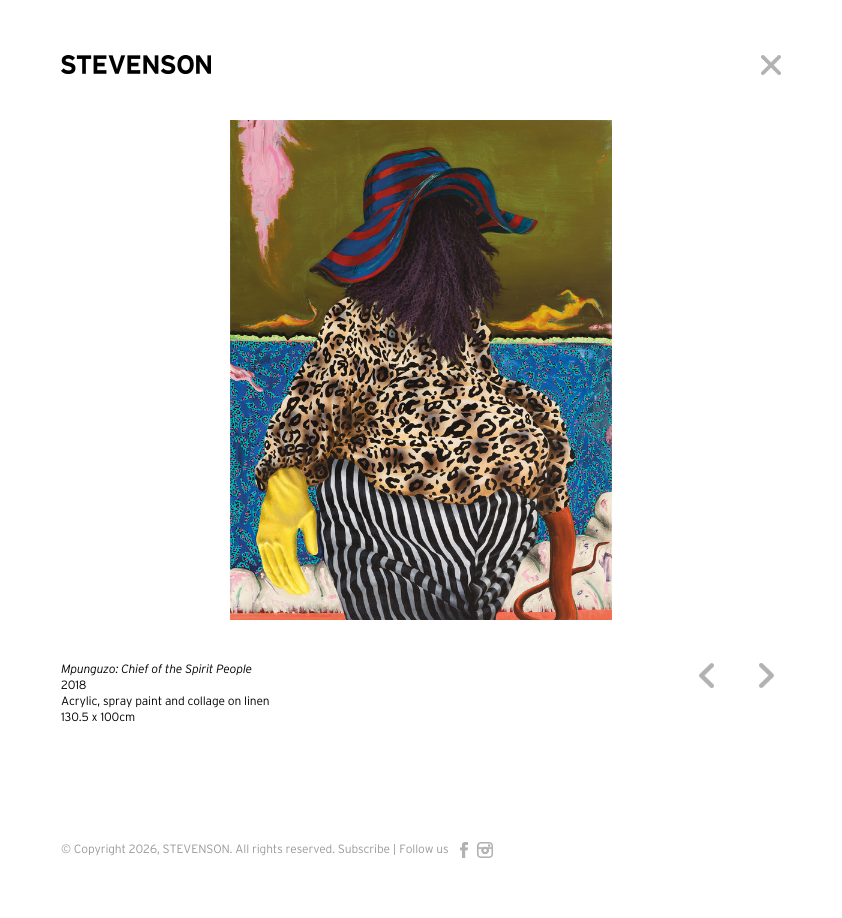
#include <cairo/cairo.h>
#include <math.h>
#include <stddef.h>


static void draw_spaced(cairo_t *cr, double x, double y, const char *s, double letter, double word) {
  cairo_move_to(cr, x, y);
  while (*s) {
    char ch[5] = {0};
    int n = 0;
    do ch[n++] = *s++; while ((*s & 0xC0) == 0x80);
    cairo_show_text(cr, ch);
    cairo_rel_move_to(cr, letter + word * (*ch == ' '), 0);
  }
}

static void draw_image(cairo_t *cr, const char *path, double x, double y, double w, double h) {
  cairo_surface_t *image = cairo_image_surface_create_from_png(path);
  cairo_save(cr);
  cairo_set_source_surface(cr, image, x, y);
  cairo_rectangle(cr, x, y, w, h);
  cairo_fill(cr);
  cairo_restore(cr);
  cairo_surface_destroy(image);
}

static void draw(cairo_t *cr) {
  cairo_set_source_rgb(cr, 1, 1, 1);
  cairo_paint(cr);
  draw_image(cr, "images/1.png", 61, 55, 150, 19);
  draw_image(cr, "images/2.png", 761, 55, 20, 20);
  draw_image(cr, "images/3.png", 229, 120, 384, 500);
  draw_image(cr, "images/4.png", 699, 663, 15, 25);
  draw_image(cr, "images/5.png", 759, 663, 15, 25);
  draw_image(cr, "images/6.png", 460, 842, 8, 16);
  draw_image(cr, "images/7.png", 477, 842, 16, 16);
  cairo_select_font_face(cr, "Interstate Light", CAIRO_FONT_SLANT_ITALIC, CAIRO_FONT_WEIGHT_NORMAL);
  cairo_set_font_size(cr, 12);
  cairo_set_source_rgb(cr, 0, 0, 0);
  draw_spaced(cr, 61, 673, "Mpunguzo: Chief of the Spirit People", -0.15, 0);
  cairo_select_font_face(cr, "Interstate Light", CAIRO_FONT_SLANT_NORMAL, CAIRO_FONT_WEIGHT_NORMAL);
  draw_spaced(cr, 61, 689, "2018", -0.15, 0);
  draw_spaced(cr, 61, 705, "Acrylic, spray paint and collage on linen", -0.15, 0);
  draw_spaced(cr, 61, 721, "130.5 x 100cm", -0.15, 0);
  cairo_set_source_rgb(cr, 153 / 255.0, 153 / 255.0, 153 / 255.0);
  draw_spaced(cr, 61, 853, "© Copyright 2026, STEVENSON. All rights reserved. Subscribe | Follow us", -0.15, 0);
}

int main(void) {
  cairo_surface_t *surface = cairo_image_surface_create(CAIRO_FORMAT_RGB24, 842, 918);
  cairo_t *cr = cairo_create(surface);
  cairo_font_options_t *options = cairo_font_options_create();
  cairo_font_options_set_hint_metrics(options, CAIRO_HINT_METRICS_OFF);
  cairo_font_options_set_hint_style(options, CAIRO_HINT_STYLE_NONE);
  cairo_set_font_options(cr, options);
  cairo_set_miter_limit(cr, 4);
  draw(cr);
  cairo_surface_write_to_png(surface, "out.png");
  cairo_font_options_destroy(options);
  cairo_destroy(cr);
  cairo_surface_destroy(surface);
  return 0;
}
